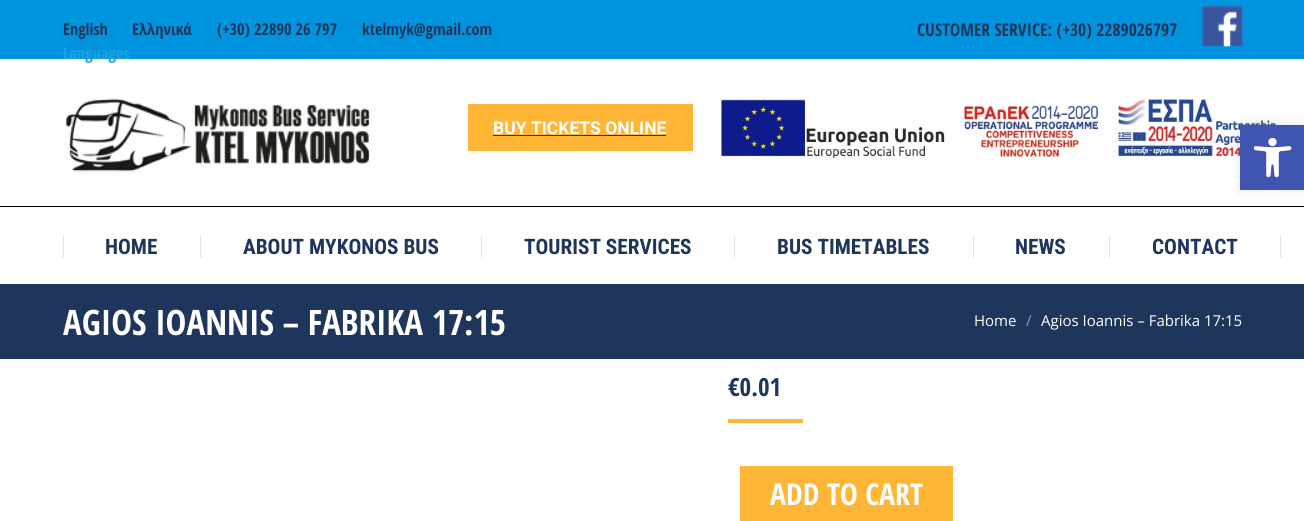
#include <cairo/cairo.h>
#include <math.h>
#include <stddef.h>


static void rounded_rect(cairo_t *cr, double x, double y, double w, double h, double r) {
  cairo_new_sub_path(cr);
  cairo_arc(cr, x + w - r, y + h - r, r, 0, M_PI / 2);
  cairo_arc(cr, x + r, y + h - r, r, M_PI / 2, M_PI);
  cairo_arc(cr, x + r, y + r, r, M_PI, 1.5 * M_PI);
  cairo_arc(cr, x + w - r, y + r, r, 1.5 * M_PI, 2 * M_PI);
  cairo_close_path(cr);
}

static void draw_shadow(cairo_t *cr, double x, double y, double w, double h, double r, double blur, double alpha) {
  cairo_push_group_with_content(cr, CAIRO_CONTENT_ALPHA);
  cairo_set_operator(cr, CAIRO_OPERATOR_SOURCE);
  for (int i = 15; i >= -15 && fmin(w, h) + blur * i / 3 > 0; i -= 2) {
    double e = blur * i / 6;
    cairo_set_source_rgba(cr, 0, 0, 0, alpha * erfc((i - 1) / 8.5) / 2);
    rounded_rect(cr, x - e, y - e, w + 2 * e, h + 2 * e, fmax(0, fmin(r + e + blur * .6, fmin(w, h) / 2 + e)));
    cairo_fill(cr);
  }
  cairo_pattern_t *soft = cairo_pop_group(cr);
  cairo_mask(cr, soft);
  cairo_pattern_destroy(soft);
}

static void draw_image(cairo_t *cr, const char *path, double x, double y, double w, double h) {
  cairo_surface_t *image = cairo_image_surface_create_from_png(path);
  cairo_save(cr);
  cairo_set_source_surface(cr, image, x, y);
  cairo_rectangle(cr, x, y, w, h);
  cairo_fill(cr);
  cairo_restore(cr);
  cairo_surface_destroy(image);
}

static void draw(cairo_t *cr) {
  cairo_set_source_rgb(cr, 1, 1, 1);
  cairo_paint(cr);
  cairo_set_source_rgb(cr, 0, 148 / 255.0, 223 / 255.0);
  cairo_rectangle(cr, 0, 0, 1304, 59);
  cairo_fill(cr);
  draw_image(cr, "images/1.png", 1202, 6, 41, 41);
  draw_image(cr, "images/2.png", 65, 98, 305, 74);
  cairo_set_source_rgb(cr, 1, 181 / 255.0, 54 / 255.0);
  cairo_rectangle(cr, 468, 104, 225, 47);
  cairo_fill(cr);
  cairo_set_source_rgb(cr, 31 / 255.0, 54 / 255.0, 92 / 255.0);
  cairo_rectangle(cr, 493, 135, 173, 1);
  cairo_fill(cr);
  draw_image(cr, "images/3.png", 719, 99, 561, 60);
  cairo_set_source_rgb(cr, 0, 0, 0);
  cairo_rectangle(cr, 0, 206, 1304, 1);
  cairo_fill(cr);
  cairo_set_source_rgb(cr, 231 / 255.0, 231 / 255.0, 231 / 255.0);
  cairo_rectangle(cr, 63, 235, 1, 23);
  cairo_fill(cr);
  cairo_rectangle(cr, 200, 235, 1, 23);
  cairo_fill(cr);
  cairo_rectangle(cr, 481, 235, 1, 23);
  cairo_fill(cr);
  cairo_rectangle(cr, 734, 235, 1, 23);
  cairo_fill(cr);
  cairo_rectangle(cr, 973, 235, 1, 23);
  cairo_fill(cr);
  cairo_rectangle(cr, 1109, 235, 1, 23);
  cairo_fill(cr);
  cairo_rectangle(cr, 1280, 235, 1, 23);
  cairo_fill(cr);
  cairo_set_source_rgb(cr, 31 / 255.0, 54 / 255.0, 92 / 255.0);
  cairo_rectangle(cr, 0, 284, 1304, 75);
  cairo_fill(cr);
  cairo_set_source_rgb(cr, 1, 181 / 255.0, 54 / 255.0);
  cairo_rectangle(cr, 728, 419, 75, 4);
  cairo_fill(cr);
  cairo_rectangle(cr, 740, 466, 213, 55);
  cairo_fill(cr);
  cairo_set_source_rgb(cr, 0, 0, 0);
  draw_shadow(cr, 1240, 125, 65, 65, 0, 6, 0.1);
  cairo_set_source_rgb(cr, 64 / 255.0, 84 / 255.0, 178 / 255.0);
  cairo_rectangle(cr, 1240, 125, 64, 65);
  cairo_fill(cr);
  draw_image(cr, "images/4.png", 1253, 138, 39, 40);
  cairo_select_font_face(cr, "Open Sans Condensed", CAIRO_FONT_SLANT_NORMAL, CAIRO_FONT_WEIGHT_BOLD);
  cairo_set_font_size(cr, 16.25);
  cairo_set_source_rgb(cr, 31 / 255.0, 54 / 255.0, 92 / 255.0);
  cairo_move_to(cr, 63, 35);
  cairo_show_text(cr, "English");
  cairo_move_to(cr, 132, 35);
  cairo_show_text(cr, "Ελληνικά");
  cairo_set_source_rgb(cr, 30 / 255.0, 160 / 255.0, 227 / 255.0);
  cairo_move_to(cr, 63, 59);
  cairo_show_text(cr, "Languages");
  cairo_set_source_rgb(cr, 31 / 255.0, 54 / 255.0, 92 / 255.0);
  cairo_move_to(cr, 217, 35);
  cairo_show_text(cr, "(+30) 22890 26 797");
  cairo_move_to(cr, 362, 35);
  cairo_show_text(cr, "ktelmyk@gmail.com");
  cairo_set_font_size(cr, 17.5);
  cairo_move_to(cr, 917, 36);
  cairo_show_text(cr, "CUSTOMER SERVICE: (+30) 2289026797");
  cairo_select_font_face(cr, "Roboto", CAIRO_FONT_SLANT_NORMAL, CAIRO_FONT_WEIGHT_BOLD);
  cairo_set_source_rgb(cr, 1, 1, 1);
  cairo_move_to(cr, 493, 134);
  cairo_show_text(cr, "BUY TICKETS ONLINE");
  cairo_select_font_face(cr, "Roboto Condensed", CAIRO_FONT_SLANT_NORMAL, CAIRO_FONT_WEIGHT_BOLD);
  cairo_set_font_size(cr, 21.25);
  cairo_set_source_rgb(cr, 31 / 255.0, 54 / 255.0, 92 / 255.0);
  cairo_move_to(cr, 105, 254);
  cairo_show_text(cr, "HOME");
  cairo_move_to(cr, 243, 254);
  cairo_show_text(cr, "ABOUT MYKONOS BUS");
  cairo_move_to(cr, 524, 254);
  cairo_show_text(cr, "TOURIST SERVICES");
  cairo_move_to(cr, 777, 254);
  cairo_show_text(cr, "BUS TIMETABLES");
  cairo_move_to(cr, 1015, 254);
  cairo_show_text(cr, "NEWS");
  cairo_move_to(cr, 1152, 254);
  cairo_show_text(cr, "CONTACT");
  cairo_select_font_face(cr, "Open Sans Condensed", CAIRO_FONT_SLANT_NORMAL, CAIRO_FONT_WEIGHT_BOLD);
  cairo_set_font_size(cr, 35);
  cairo_set_source_rgb(cr, 1, 1, 1);
  cairo_move_to(cr, 63, 335);
  cairo_show_text(cr, "AGIOS IOANNIS – FABRIKA 17:15");
  cairo_select_font_face(cr, "Open Sans", CAIRO_FONT_SLANT_NORMAL, CAIRO_FONT_WEIGHT_NORMAL);
  cairo_set_font_size(cr, 15);
  cairo_move_to(cr, 974, 326);
  cairo_show_text(cr, "Home");
  cairo_set_source_rgb(cr, 143 / 255.0, 155 / 255.0, 174 / 255.0);
  cairo_move_to(cr, 1026, 326);
  cairo_show_text(cr, "/");
  cairo_set_source_rgb(cr, 1, 1, 1);
  cairo_move_to(cr, 1041, 326);
  cairo_show_text(cr, "Agios Ioannis – Fabrika 17:15");
  cairo_select_font_face(cr, "Open Sans Condensed", CAIRO_FONT_SLANT_NORMAL, CAIRO_FONT_WEIGHT_BOLD);
  cairo_set_font_size(cr, 25);
  cairo_set_source_rgb(cr, 31 / 255.0, 54 / 255.0, 92 / 255.0);
  cairo_move_to(cr, 728, 396);
  cairo_show_text(cr, "€0.01");
  cairo_set_font_size(cr, 30);
  cairo_set_source_rgb(cr, 1, 1, 1);
  cairo_move_to(cr, 770, 505);
  cairo_show_text(cr, "ADD TO CART");
}

int main(void) {
  cairo_surface_t *surface = cairo_image_surface_create(CAIRO_FORMAT_RGB24, 1304, 521);
  cairo_t *cr = cairo_create(surface);
  cairo_font_options_t *options = cairo_font_options_create();
  cairo_font_options_set_hint_metrics(options, CAIRO_HINT_METRICS_OFF);
  cairo_font_options_set_hint_style(options, CAIRO_HINT_STYLE_NONE);
  cairo_set_font_options(cr, options);
  cairo_set_miter_limit(cr, 4);
  draw(cr);
  cairo_surface_write_to_png(surface, "out.png");
  cairo_font_options_destroy(options);
  cairo_destroy(cr);
  cairo_surface_destroy(surface);
  return 0;
}
